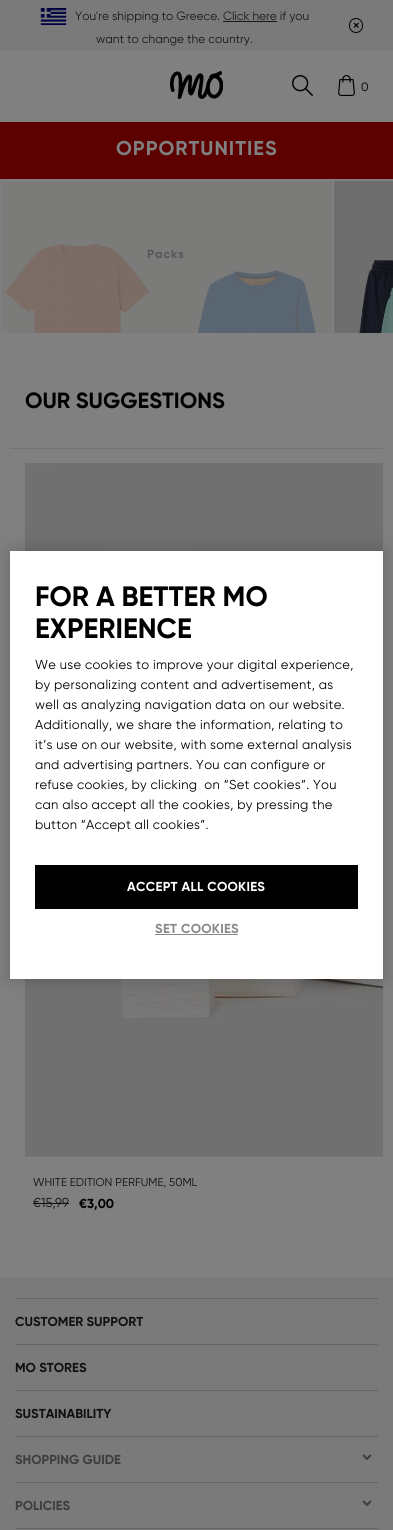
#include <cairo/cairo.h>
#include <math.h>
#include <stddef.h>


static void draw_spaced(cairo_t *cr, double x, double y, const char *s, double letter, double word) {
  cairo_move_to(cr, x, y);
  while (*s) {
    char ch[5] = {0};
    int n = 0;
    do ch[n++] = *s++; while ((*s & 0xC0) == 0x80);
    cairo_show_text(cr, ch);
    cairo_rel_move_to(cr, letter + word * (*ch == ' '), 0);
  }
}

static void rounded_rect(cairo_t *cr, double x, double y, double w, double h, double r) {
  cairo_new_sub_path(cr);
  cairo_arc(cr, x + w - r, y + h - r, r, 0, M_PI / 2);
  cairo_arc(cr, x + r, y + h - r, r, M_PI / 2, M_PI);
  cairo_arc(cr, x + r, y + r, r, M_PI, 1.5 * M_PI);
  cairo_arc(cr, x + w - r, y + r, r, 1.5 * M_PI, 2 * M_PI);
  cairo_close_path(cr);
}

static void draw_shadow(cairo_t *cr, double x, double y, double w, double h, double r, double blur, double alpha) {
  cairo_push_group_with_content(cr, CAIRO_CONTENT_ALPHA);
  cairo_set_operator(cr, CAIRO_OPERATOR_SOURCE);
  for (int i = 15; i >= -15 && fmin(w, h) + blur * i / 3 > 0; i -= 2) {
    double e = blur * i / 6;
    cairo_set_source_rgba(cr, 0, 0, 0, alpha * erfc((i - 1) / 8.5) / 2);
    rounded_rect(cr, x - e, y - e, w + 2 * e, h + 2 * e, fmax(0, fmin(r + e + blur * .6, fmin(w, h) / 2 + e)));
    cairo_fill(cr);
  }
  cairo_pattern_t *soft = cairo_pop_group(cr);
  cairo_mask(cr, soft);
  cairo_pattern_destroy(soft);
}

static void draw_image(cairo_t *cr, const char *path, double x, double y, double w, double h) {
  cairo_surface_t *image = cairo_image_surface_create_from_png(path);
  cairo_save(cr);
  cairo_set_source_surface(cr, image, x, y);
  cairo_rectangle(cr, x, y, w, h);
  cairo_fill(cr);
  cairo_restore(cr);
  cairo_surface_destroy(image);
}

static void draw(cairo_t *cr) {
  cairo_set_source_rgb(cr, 128 / 255.0, 128 / 255.0, 128 / 255.0);
  cairo_paint(cr);
  cairo_set_source_rgb(cr, 122 / 255.0, 122 / 255.0, 122 / 255.0);
  cairo_rectangle(cr, 0, 0, 393, 51);
  cairo_fill(cr);
  draw_image(cr, "images/1.png", 40, 8, 27, 17);
  cairo_set_source_rgb(cr, 23 / 255.0, 23 / 255.0, 23 / 255.0);
  cairo_rectangle(cr, 223, 21, 54, 1);
  cairo_fill(cr);
  rounded_rect(cr, 349.5, 18.5, 13, 14, 6.5);
  cairo_set_source_rgb(cr, 0, 0, 0);
  cairo_set_line_width(cr, 1);
  cairo_stroke(cr);
  draw_image(cr, "images/2.png", 170, 71, 53, 28);
  draw_image(cr, "images/3.png", 292, 75, 21, 21);
  draw_image(cr, "images/4.png", 338, 75, 17, 21);
  cairo_set_source_rgb(cr, 93 / 255.0, 0, 0);
  cairo_rectangle(cr, 0, 122, 393, 57);
  cairo_fill(cr);
  draw_image(cr, "images/5.png", 1, 181, 331, 152);
  draw_image(cr, "images/6.png", 334, 181, 59, 152);
  cairo_set_source_rgb(cr, 115 / 255.0, 115 / 255.0, 115 / 255.0);
  cairo_rectangle(cr, 10, 448, 373, 1);
  cairo_fill(cr);
  draw_image(cr, "images/7.png", 25, 463, 358, 694);
  cairo_set_source_rgb(cr, 16 / 255.0, 16 / 255.0, 16 / 255.0);
  cairo_rectangle(cr, 33, 1203, 8, 1);
  cairo_fill(cr);
  cairo_rectangle(cr, 55, 1203, 14, 1);
  cairo_fill(cr);
  cairo_rectangle(cr, 41, 1203, 14, 1);
  cairo_fill(cr);
  cairo_set_source_rgb(cr, 0, 0, 0);
  draw_shadow(cr, 10, 551, 373, 428, 0, 9, 0.2);
  cairo_set_source_rgb(cr, 1, 1, 1);
  cairo_rectangle(cr, 10, 551, 373, 428);
  cairo_fill(cr);
  cairo_set_source_rgb(cr, 0, 0, 0);
  cairo_rectangle(cr, 35, 865, 323, 44);
  cairo_fill(cr);
  cairo_set_source_rgb(cr, 136 / 255.0, 136 / 255.0, 136 / 255.0);
  cairo_rectangle(cr, 155, 934, 83, 1);
  cairo_fill(cr);
  cairo_set_source_rgb(cr, 122 / 255.0, 122 / 255.0, 122 / 255.0);
  cairo_rectangle(cr, 0, 1277, 393, 253);
  cairo_fill(cr);
  cairo_set_source_rgb(cr, 102 / 255.0, 102 / 255.0, 102 / 255.0);
  cairo_rectangle(cr, 15, 1298, 363, 1);
  cairo_fill(cr);
  cairo_rectangle(cr, 15, 1344, 363, 1);
  cairo_fill(cr);
  cairo_rectangle(cr, 15, 1390, 363, 1);
  cairo_fill(cr);
  cairo_rectangle(cr, 15, 1436, 363, 1);
  cairo_fill(cr);
  draw_image(cr, "images/8.png", 362, 1454, 10, 7);
  cairo_rectangle(cr, 15, 1482, 363, 1);
  cairo_fill(cr);
  draw_image(cr, "images/8.png", 362, 1500, 10, 7);
  cairo_rectangle(cr, 15, 1528, 363, 1);
  cairo_fill(cr);
  cairo_select_font_face(cr, "Gilroy", CAIRO_FONT_SLANT_NORMAL, CAIRO_FONT_WEIGHT_NORMAL);
  cairo_set_font_size(cr, 12);
  cairo_set_source_rgb(cr, 23 / 255.0, 23 / 255.0, 23 / 255.0);
  cairo_move_to(cr, 75, 20);
  cairo_show_text(cr, "You're shipping to Greece. Click here if you");
  cairo_move_to(cr, 96, 43);
  cairo_show_text(cr, "want to change the country.");
  cairo_select_font_face(cr, "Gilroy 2", CAIRO_FONT_SLANT_NORMAL, CAIRO_FONT_WEIGHT_BOLD);
  cairo_set_font_size(cr, 13);
  cairo_set_source_rgb(cr, 0, 0, 0);
  cairo_move_to(cr, 353, 30);
  cairo_show_text(cr, "×");
  cairo_select_font_face(cr, "Gilroy", CAIRO_FONT_SLANT_NORMAL, CAIRO_FONT_WEIGHT_NORMAL);
  cairo_set_font_size(cr, 12);
  cairo_move_to(cr, 361, 91);
  cairo_show_text(cr, "0");
  cairo_select_font_face(cr, "Gilroy", CAIRO_FONT_SLANT_NORMAL, CAIRO_FONT_WEIGHT_BOLD);
  cairo_set_font_size(cr, 20);
  cairo_set_source_rgb(cr, 128 / 255.0, 128 / 255.0, 128 / 255.0);
  draw_spaced(cr, 116, 155, "OPPORTUNITIES", 1, 0);
  cairo_set_font_size(cr, 12);
  cairo_set_source_rgb(cr, 86 / 255.0, 86 / 255.0, 86 / 255.0);
  draw_spaced(cr, 147, 258, "Packs", 1, 0);
  cairo_set_font_size(cr, 22);
  cairo_set_source_rgb(cr, 0, 0, 0);
  cairo_move_to(cr, 25, 408);
  cairo_show_text(cr, "OUR SUGGESTIONS");
  cairo_select_font_face(cr, "Gilroy", CAIRO_FONT_SLANT_NORMAL, CAIRO_FONT_WEIGHT_NORMAL);
  cairo_set_font_size(cr, 11.4);
  cairo_set_source_rgb(cr, 16 / 255.0, 16 / 255.0, 16 / 255.0);
  cairo_move_to(cr, 33, 1186);
  cairo_show_text(cr, "WHITE EDITION PERFUME, 50ML");
  cairo_set_font_size(cr, 13);
  cairo_move_to(cr, 33, 1207);
  cairo_show_text(cr, "€");
  cairo_move_to(cr, 41, 1207);
  cairo_show_text(cr, "15,");
  cairo_move_to(cr, 55, 1207);
  cairo_show_text(cr, "99");
  cairo_select_font_face(cr, "Gilroy", CAIRO_FONT_SLANT_NORMAL, CAIRO_FONT_WEIGHT_BOLD);
  cairo_set_source_rgb(cr, 0, 0, 0);
  cairo_move_to(cr, 79, 1208);
  cairo_show_text(cr, "€3,00");
  cairo_set_font_size(cr, 28);
  cairo_move_to(cr, 35, 606);
  cairo_show_text(cr, "FOR A BETTER MO");
  cairo_move_to(cr, 35, 638);
  cairo_show_text(cr, "EXPERIENCE");
  cairo_select_font_face(cr, "Gilroy", CAIRO_FONT_SLANT_NORMAL, CAIRO_FONT_WEIGHT_NORMAL);
  cairo_set_font_size(cr, 13);
  draw_spaced(cr, 35, 669, "We use cookies to improve your digital experience,", 0.3, 0);
  draw_spaced(cr, 35, 689, "by personalizing content and advertisement, as", 0.3, 0);
  draw_spaced(cr, 35, 709, "well as analyzing navigation data on our website.", 0.3, 0);
  draw_spaced(cr, 35, 729, "Additionally, we share the information, relating to", 0.3, 0);
  draw_spaced(cr, 35, 749, "it’s use on our website, with some external analysis", 0.3, 0);
  draw_spaced(cr, 35, 769, "and advertising partners. You can configure or", 0.3, 0);
  draw_spaced(cr, 35, 789, "refuse cookies, by clicking  on “Set cookies”. You", 0.3, 0);
  draw_spaced(cr, 35, 809, "can also accept all the cookies, by pressing the", 0.3, 0);
  draw_spaced(cr, 35, 829, "button “Accept all cookies”.", 0.3, 0);
  cairo_select_font_face(cr, "Gilroy", CAIRO_FONT_SLANT_NORMAL, CAIRO_FONT_WEIGHT_BOLD);
  cairo_set_source_rgb(cr, 1, 1, 1);
  draw_spaced(cr, 127, 891, "ACCEPT ALL COOKIES", 0.3, 0);
  cairo_set_source_rgb(cr, 136 / 255.0, 136 / 255.0, 136 / 255.0);
  draw_spaced(cr, 155, 933, "SET COOKIES", 0.3, 0);
  cairo_set_source_rgb(cr, 16 / 255.0, 16 / 255.0, 16 / 255.0);
  cairo_move_to(cr, 15, 1326);
  cairo_show_text(cr, "CUSTOMER SUPPORT");
  cairo_move_to(cr, 15, 1372);
  cairo_show_text(cr, "MO STORES");
  cairo_move_to(cr, 15, 1418);
  cairo_show_text(cr, "SUSTAINABILITY");
  cairo_set_source_rgb(cr, 60 / 255.0, 60 / 255.0, 60 / 255.0);
  cairo_move_to(cr, 15, 1464);
  cairo_show_text(cr, "SHOPPING GUIDE");
  cairo_move_to(cr, 15, 1510);
  cairo_show_text(cr, "POLICIES");
}

int main(void) {
  cairo_surface_t *surface = cairo_image_surface_create(CAIRO_FORMAT_RGB24, 393, 1530);
  cairo_t *cr = cairo_create(surface);
  cairo_font_options_t *options = cairo_font_options_create();
  cairo_font_options_set_hint_metrics(options, CAIRO_HINT_METRICS_OFF);
  cairo_font_options_set_hint_style(options, CAIRO_HINT_STYLE_NONE);
  cairo_set_font_options(cr, options);
  cairo_set_miter_limit(cr, 4);
  draw(cr);
  cairo_surface_write_to_png(surface, "out.png");
  cairo_font_options_destroy(options);
  cairo_destroy(cr);
  cairo_surface_destroy(surface);
  return 0;
}
